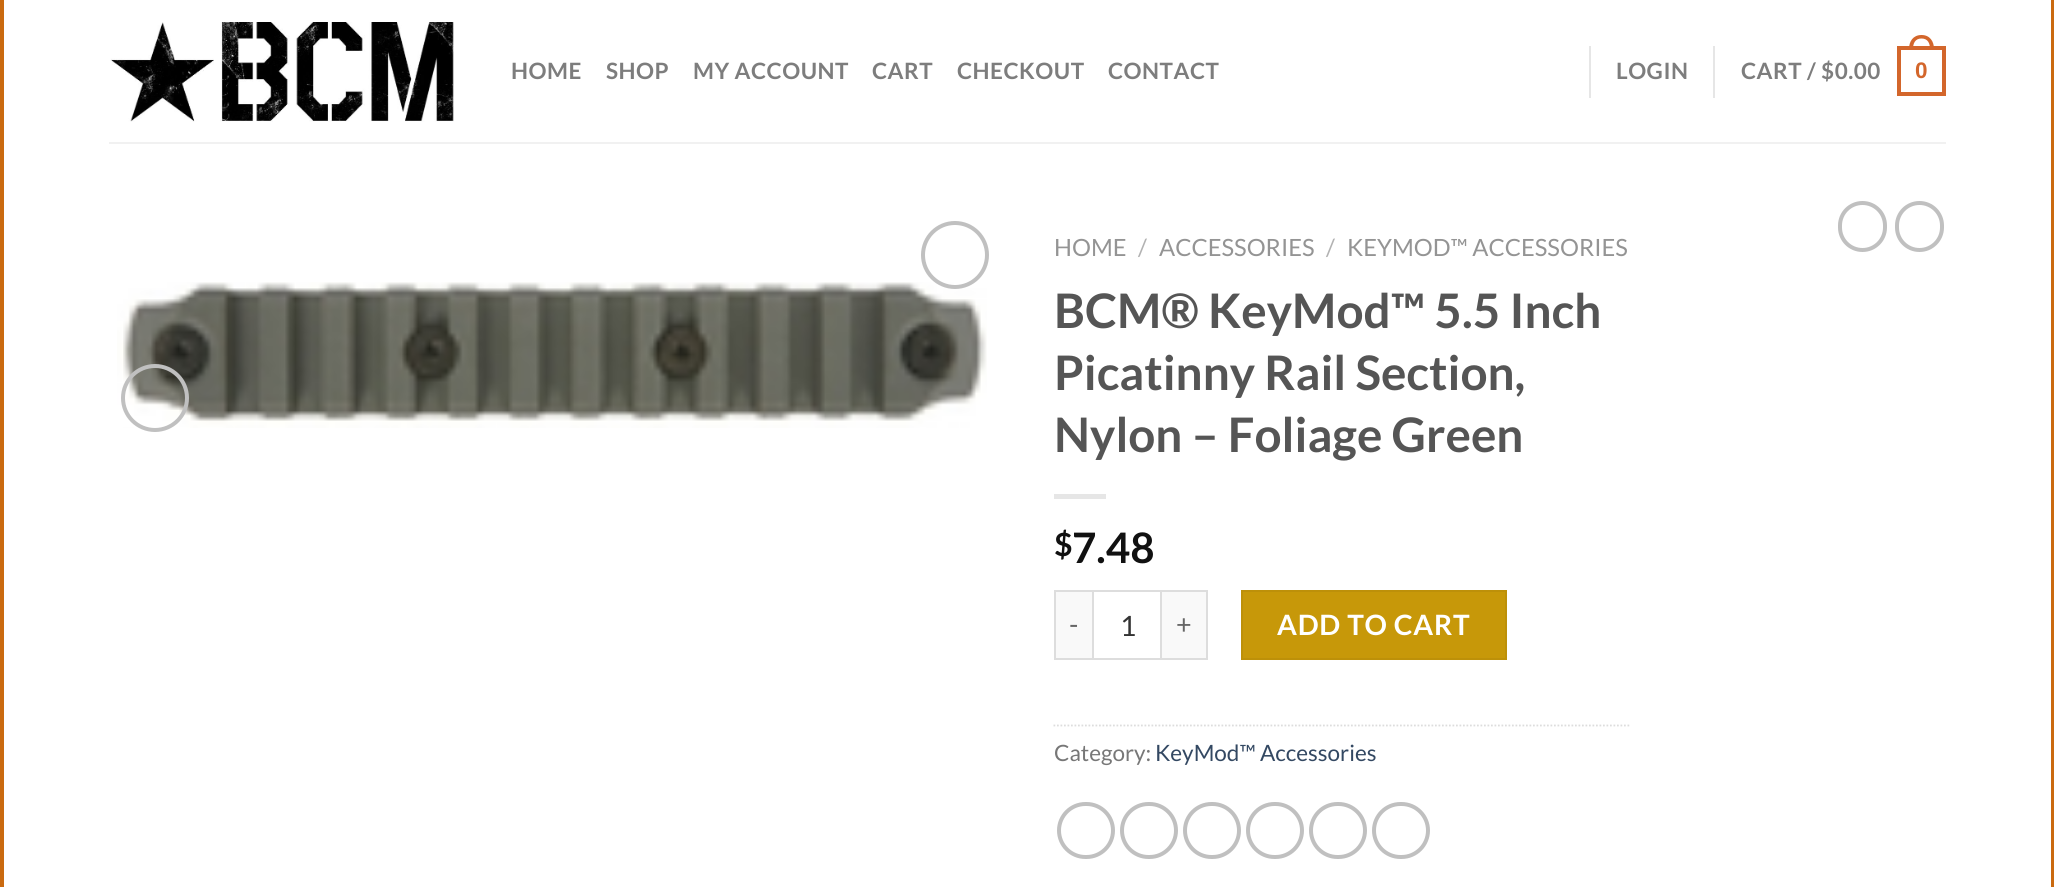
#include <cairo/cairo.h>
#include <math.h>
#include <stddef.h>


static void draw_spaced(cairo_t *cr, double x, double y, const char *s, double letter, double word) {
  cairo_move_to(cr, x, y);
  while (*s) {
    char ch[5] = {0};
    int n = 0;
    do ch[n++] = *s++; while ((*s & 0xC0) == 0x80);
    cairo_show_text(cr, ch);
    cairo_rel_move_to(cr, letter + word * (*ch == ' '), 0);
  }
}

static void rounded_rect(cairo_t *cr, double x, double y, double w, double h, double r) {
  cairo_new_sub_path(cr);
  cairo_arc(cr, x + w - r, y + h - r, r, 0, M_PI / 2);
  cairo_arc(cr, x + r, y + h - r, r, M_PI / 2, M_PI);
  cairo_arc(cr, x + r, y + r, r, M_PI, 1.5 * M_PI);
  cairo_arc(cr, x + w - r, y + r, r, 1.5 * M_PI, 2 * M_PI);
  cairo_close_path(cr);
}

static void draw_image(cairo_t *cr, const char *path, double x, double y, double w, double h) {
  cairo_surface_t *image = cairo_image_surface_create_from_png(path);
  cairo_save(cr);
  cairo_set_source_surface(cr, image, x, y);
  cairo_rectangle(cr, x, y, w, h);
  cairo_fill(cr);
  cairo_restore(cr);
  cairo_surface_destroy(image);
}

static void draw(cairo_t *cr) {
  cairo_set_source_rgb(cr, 202 / 255.0, 106 / 255.0, 16 / 255.0);
  cairo_paint(cr);
  cairo_set_source_rgb(cr, 1, 1, 1);
  cairo_rectangle(cr, 4, 0, 2047, 887);
  cairo_fill(cr);
  draw_image(cr, "images/1.png", 110, 22, 344, 100);
  cairo_set_source_rgb(cr, 230 / 255.0, 230 / 255.0, 230 / 255.0);
  cairo_rectangle(cr, 1589, 46, 2, 52);
  cairo_fill(cr);
  cairo_rectangle(cr, 1713, 46, 2, 52);
  cairo_fill(cr);
  cairo_rectangle(cr, 1899, 48, 45, 46);
  cairo_set_source_rgb(cr, 211 / 255.0, 102 / 255.0, 43 / 255.0);
  cairo_set_line_width(cr, 4);
  cairo_stroke(cr);
  cairo_set_fill_rule(cr, CAIRO_FILL_RULE_EVEN_ODD);
  cairo_new_path(cr);
  cairo_move_to(cr, 1921.5, 35);
  cairo_curve_to(cr, 1930, 35, 1934, 41.5, 1934, 49);
  cairo_line_to(cr, 1909, 49);
  cairo_curve_to(cr, 1909, 41.5, 1913, 35, 1921.5, 35);
  cairo_close_path(cr);
  cairo_move_to(cr, 1921.5, 38.5);
  cairo_curve_to(cr, 1928, 38.5, 1930, 43.5, 1930, 49);
  cairo_line_to(cr, 1913, 49);
  cairo_curve_to(cr, 1913, 43.5, 1915, 38.5, 1921.5, 38.5);
  cairo_close_path(cr);
  cairo_fill(cr);
  cairo_set_source_rgb(cr, 241 / 255.0, 241 / 255.0, 241 / 255.0);
  cairo_rectangle(cr, 109, 142, 1837, 2);
  cairo_fill(cr);
  draw_image(cr, "images/2.png", 117, 282, 870, 146);
  cairo_arc(cr, 955, 255, 32, 0, 2 * M_PI);
  cairo_set_source_rgb(cr, 192 / 255.0, 192 / 255.0, 192 / 255.0);
  cairo_stroke(cr);
  cairo_arc(cr, 155, 398, 32, 0, 2 * M_PI);
  cairo_stroke(cr);
  cairo_set_source_rgb(cr, 230 / 255.0, 230 / 255.0, 230 / 255.0);
  cairo_rectangle(cr, 1054, 494, 52, 5);
  cairo_fill(cr);
  cairo_set_source_rgb(cr, 249 / 255.0, 249 / 255.0, 249 / 255.0);
  cairo_rectangle(cr, 1056, 592, 36, 66);
  cairo_fill(cr);
  cairo_set_source_rgb(cr, 221 / 255.0, 221 / 255.0, 221 / 255.0);
  cairo_rectangle(cr, 1054, 590, 38, 2);
  cairo_fill(cr);
  cairo_rectangle(cr, 1054, 658, 38, 2);
  cairo_fill(cr);
  cairo_rectangle(cr, 1054, 590, 2, 70);
  cairo_fill(cr);
  cairo_rectangle(cr, 1093, 591, 68, 68);
  cairo_set_line_width(cr, 2);
  cairo_stroke(cr);
  cairo_set_source_rgb(cr, 249 / 255.0, 249 / 255.0, 249 / 255.0);
  cairo_rectangle(cr, 1162, 592, 44, 66);
  cairo_fill(cr);
  cairo_set_source_rgb(cr, 221 / 255.0, 221 / 255.0, 221 / 255.0);
  cairo_rectangle(cr, 1162, 590, 46, 2);
  cairo_fill(cr);
  cairo_rectangle(cr, 1206, 590, 2, 70);
  cairo_fill(cr);
  cairo_rectangle(cr, 1162, 658, 46, 2);
  cairo_fill(cr);
  cairo_set_source_rgb(cr, 199 / 255.0, 152 / 255.0, 9 / 255.0);
  cairo_rectangle(cr, 1242, 591, 264, 68);
  cairo_fill_preserve(cr);
  cairo_set_source_rgb(cr, 189 / 255.0, 144 / 255.0, 9 / 255.0);
  cairo_stroke(cr);
  cairo_new_path(cr);
  cairo_move_to(cr, 1053.5, 725.5);
  cairo_line_to(cr, 1631, 725.5);
  cairo_set_source_rgb(cr, 221 / 255.0, 221 / 255.0, 221 / 255.0);
  cairo_set_line_width(cr, 1.8);
  cairo_set_dash(cr, (double[]){1.75, 1.75}, 2, 0);
  cairo_stroke(cr);
  rounded_rect(cr, 1059, 804, 54, 53, 26.5);
  cairo_set_source_rgb(cr, 192 / 255.0, 192 / 255.0, 192 / 255.0);
  cairo_set_line_width(cr, 4);
  cairo_set_dash(cr, NULL, 0, 0);
  cairo_stroke(cr);
  rounded_rect(cr, 1122, 804, 54, 53, 26.5);
  cairo_stroke(cr);
  rounded_rect(cr, 1185, 804, 54, 53, 26.5);
  cairo_stroke(cr);
  rounded_rect(cr, 1248, 804, 54, 53, 26.5);
  cairo_stroke(cr);
  rounded_rect(cr, 1311, 804, 54, 53, 26.5);
  cairo_stroke(cr);
  rounded_rect(cr, 1374, 804, 54, 53, 26.5);
  cairo_stroke(cr);
  rounded_rect(cr, 1840, 203, 45, 47, 22.5);
  cairo_stroke(cr);
  rounded_rect(cr, 1897, 203, 45, 47, 22.5);
  cairo_stroke(cr);
  cairo_select_font_face(cr, "Lato", CAIRO_FONT_SLANT_NORMAL, CAIRO_FONT_WEIGHT_BOLD);
  cairo_set_font_size(cr, 22.5);
  cairo_set_source_rgb(cr, 125 / 255.0, 125 / 255.0, 125 / 255.0);
  draw_spaced(cr, 511, 79, "HOME", 0.5, 0);
  draw_spaced(cr, 606, 79, "SHOP", 0.5, 0);
  draw_spaced(cr, 693, 79, "MY ACCOUNT", 0.5, 0);
  draw_spaced(cr, 872, 79, "CART", 0.5, 0);
  draw_spaced(cr, 957, 79, "CHECKOUT", 0.5, 0);
  draw_spaced(cr, 1108, 79, "CONTACT", 0.5, 0);
  draw_spaced(cr, 1616, 79, "LOGIN", 0.5, 0);
  draw_spaced(cr, 1741, 79, "CART / $0.00", 0.5, 0);
  cairo_select_font_face(cr, "Liberation Sans", CAIRO_FONT_SLANT_NORMAL, CAIRO_FONT_WEIGHT_BOLD);
  cairo_set_source_rgb(cr, 211 / 255.0, 102 / 255.0, 43 / 255.0);
  draw_spaced(cr, 1915, 78, "0", 0.5, 0);
  cairo_select_font_face(cr, "Lato", CAIRO_FONT_SLANT_NORMAL, CAIRO_FONT_WEIGHT_NORMAL);
  cairo_set_font_size(cr, 23.75);
  cairo_set_source_rgb(cr, 148 / 255.0, 148 / 255.0, 148 / 255.0);
  cairo_move_to(cr, 1054, 256);
  cairo_show_text(cr, "HOME");
  cairo_set_source_rgb(cr, 178 / 255.0, 178 / 255.0, 178 / 255.0);
  cairo_move_to(cr, 1138, 256);
  cairo_show_text(cr, "/");
  cairo_set_source_rgb(cr, 148 / 255.0, 148 / 255.0, 148 / 255.0);
  cairo_move_to(cr, 1159, 256);
  cairo_show_text(cr, "ACCESSORIES");
  cairo_set_source_rgb(cr, 178 / 255.0, 178 / 255.0, 178 / 255.0);
  cairo_move_to(cr, 1326, 256);
  cairo_show_text(cr, "/");
  cairo_set_source_rgb(cr, 148 / 255.0, 148 / 255.0, 148 / 255.0);
  cairo_move_to(cr, 1347, 256);
  cairo_show_text(cr, "KEYMOD™ ACCESSORIES");
  cairo_select_font_face(cr, "Lato", CAIRO_FONT_SLANT_NORMAL, CAIRO_FONT_WEIGHT_BOLD);
  cairo_set_font_size(cr, 47.6);
  cairo_set_source_rgb(cr, 85 / 255.0, 85 / 255.0, 85 / 255.0);
  cairo_move_to(cr, 1054, 328);
  cairo_show_text(cr, "BCM® KeyMod™ 5.5 Inch");
  cairo_move_to(cr, 1054, 390);
  cairo_show_text(cr, "Picatinny Rail Section,");
  cairo_move_to(cr, 1054, 452);
  cairo_show_text(cr, "Nylon – Foliage Green");
  cairo_set_font_size(cr, 32);
  cairo_set_source_rgb(cr, 17 / 255.0, 17 / 255.0, 17 / 255.0);
  cairo_move_to(cr, 1054, 556);
  cairo_show_text(cr, "$");
  cairo_set_font_size(cr, 42);
  cairo_move_to(cr, 1072, 563);
  cairo_show_text(cr, "7.48");
  cairo_select_font_face(cr, "Lato", CAIRO_FONT_SLANT_NORMAL, CAIRO_FONT_WEIGHT_NORMAL);
  cairo_set_font_size(cr, 27);
  cairo_set_source_rgb(cr, 102 / 255.0, 102 / 255.0, 102 / 255.0);
  draw_spaced(cr, 1069, 634, "-", 1, 0);
  cairo_set_font_size(cr, 28);
  cairo_set_source_rgb(cr, 51 / 255.0, 51 / 255.0, 51 / 255.0);
  cairo_move_to(cr, 1120, 636);
  cairo_show_text(cr, "1");
  cairo_set_font_size(cr, 27);
  cairo_set_source_rgb(cr, 102 / 255.0, 102 / 255.0, 102 / 255.0);
  draw_spaced(cr, 1176, 634, "+", 1, 0);
  cairo_select_font_face(cr, "Lato", CAIRO_FONT_SLANT_NORMAL, CAIRO_FONT_WEIGHT_BOLD);
  cairo_set_font_size(cr, 28);
  cairo_set_source_rgb(cr, 1, 1, 1);
  draw_spaced(cr, 1277, 635, "ADD TO CART", 0.75, 0);
  cairo_select_font_face(cr, "Lato", CAIRO_FONT_SLANT_NORMAL, CAIRO_FONT_WEIGHT_NORMAL);
  cairo_set_font_size(cr, 22.5);
  cairo_set_source_rgb(cr, 119 / 255.0, 119 / 255.0, 119 / 255.0);
  cairo_move_to(cr, 1054, 761);
  cairo_show_text(cr, "Category:");
  cairo_set_source_rgb(cr, 51 / 255.0, 72 / 255.0, 98 / 255.0);
  cairo_move_to(cr, 1155, 761);
  cairo_show_text(cr, "KeyMod™ Accessories");
}

int main(void) {
  cairo_surface_t *surface = cairo_image_surface_create(CAIRO_FORMAT_RGB24, 2054, 887);
  cairo_t *cr = cairo_create(surface);
  cairo_font_options_t *options = cairo_font_options_create();
  cairo_font_options_set_hint_metrics(options, CAIRO_HINT_METRICS_OFF);
  cairo_font_options_set_hint_style(options, CAIRO_HINT_STYLE_NONE);
  cairo_set_font_options(cr, options);
  cairo_set_miter_limit(cr, 4);
  draw(cr);
  cairo_surface_write_to_png(surface, "out.png");
  cairo_font_options_destroy(options);
  cairo_destroy(cr);
  cairo_surface_destroy(surface);
  return 0;
}
